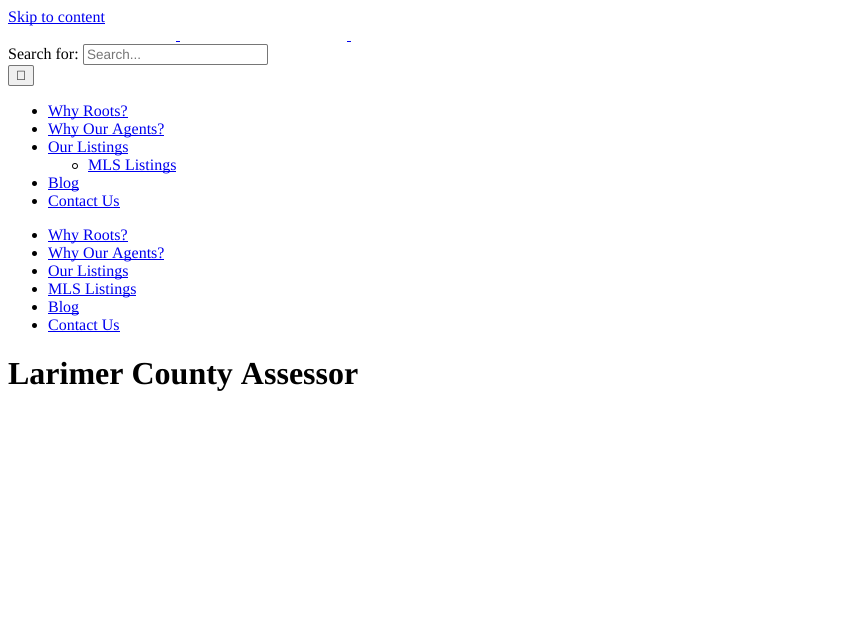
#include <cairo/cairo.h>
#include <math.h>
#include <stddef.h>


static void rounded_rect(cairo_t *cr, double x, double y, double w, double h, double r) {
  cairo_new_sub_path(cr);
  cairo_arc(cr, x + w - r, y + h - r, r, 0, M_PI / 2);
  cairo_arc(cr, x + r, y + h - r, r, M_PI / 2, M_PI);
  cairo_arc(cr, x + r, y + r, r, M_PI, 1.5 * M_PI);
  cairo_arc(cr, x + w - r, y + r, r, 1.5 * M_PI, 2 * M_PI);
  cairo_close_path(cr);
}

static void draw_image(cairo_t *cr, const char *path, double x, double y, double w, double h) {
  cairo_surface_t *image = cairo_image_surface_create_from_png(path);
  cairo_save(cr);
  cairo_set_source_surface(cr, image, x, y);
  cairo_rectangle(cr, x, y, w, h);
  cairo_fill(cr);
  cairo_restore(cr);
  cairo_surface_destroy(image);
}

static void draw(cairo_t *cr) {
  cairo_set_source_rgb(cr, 1, 1, 1);
  cairo_paint(cr);
  cairo_set_source_rgb(cr, 0, 0, 238 / 255.0);
  cairo_rectangle(cr, 8, 23, 97, 1);
  cairo_fill(cr);
  cairo_rectangle(cr, 176, 41, 4, 1);
  cairo_fill(cr);
  cairo_rectangle(cr, 347, 41, 4, 1);
  cairo_fill(cr);
  rounded_rect(cr, 83.5, 44.5, 184, 20, 1.5);
  cairo_set_source_rgb(cr, 118 / 255.0, 118 / 255.0, 118 / 255.0);
  cairo_set_line_width(cr, 1);
  cairo_stroke(cr);
  cairo_set_source_rgb(cr, 239 / 255.0, 239 / 255.0, 239 / 255.0);
  rounded_rect(cr, 8.5, 65.5, 25, 20, 1.5);
  cairo_fill_preserve(cr);
  cairo_set_source_rgb(cr, 118 / 255.0, 118 / 255.0, 118 / 255.0);
  cairo_stroke(cr);
  draw_image(cr, "images/1.png", 17, 70, 8, 10);
  cairo_set_source_rgb(cr, 0, 0, 0);
  cairo_arc(cr, 34.5, 111.5, 2.5, 0, 2 * M_PI);
  cairo_fill(cr);
  cairo_set_source_rgb(cr, 0, 0, 238 / 255.0);
  cairo_rectangle(cr, 48, 117, 80, 1);
  cairo_fill(cr);
  cairo_set_source_rgb(cr, 0, 0, 0);
  cairo_arc(cr, 34.5, 129.5, 2.5, 0, 2 * M_PI);
  cairo_fill(cr);
  cairo_set_source_rgb(cr, 0, 0, 238 / 255.0);
  cairo_rectangle(cr, 48, 135, 116, 1);
  cairo_fill(cr);
  cairo_set_source_rgb(cr, 0, 0, 0);
  cairo_arc(cr, 34.5, 147.5, 2.5, 0, 2 * M_PI);
  cairo_fill(cr);
  cairo_set_source_rgb(cr, 0, 0, 238 / 255.0);
  cairo_rectangle(cr, 48, 153, 80, 1);
  cairo_fill(cr);
  cairo_arc(cr, 75, 166, 2.5, 0, 2 * M_PI);
  cairo_set_source_rgb(cr, 0, 0, 0);
  cairo_stroke(cr);
  cairo_set_source_rgb(cr, 0, 0, 238 / 255.0);
  cairo_rectangle(cr, 88, 171, 88, 1);
  cairo_fill(cr);
  cairo_set_source_rgb(cr, 0, 0, 0);
  cairo_arc(cr, 34.5, 183.5, 2.5, 0, 2 * M_PI);
  cairo_fill(cr);
  cairo_set_source_rgb(cr, 0, 0, 238 / 255.0);
  cairo_rectangle(cr, 48, 189, 31, 1);
  cairo_fill(cr);
  cairo_set_source_rgb(cr, 0, 0, 0);
  cairo_arc(cr, 34.5, 201.5, 2.5, 0, 2 * M_PI);
  cairo_fill(cr);
  cairo_set_source_rgb(cr, 0, 0, 238 / 255.0);
  cairo_rectangle(cr, 48, 207, 72, 1);
  cairo_fill(cr);
  cairo_set_source_rgb(cr, 0, 0, 0);
  cairo_arc(cr, 34.5, 235.5, 2.5, 0, 2 * M_PI);
  cairo_fill(cr);
  cairo_set_source_rgb(cr, 0, 0, 238 / 255.0);
  cairo_rectangle(cr, 48, 241, 80, 1);
  cairo_fill(cr);
  cairo_set_source_rgb(cr, 0, 0, 0);
  cairo_arc(cr, 34.5, 253.5, 2.5, 0, 2 * M_PI);
  cairo_fill(cr);
  cairo_set_source_rgb(cr, 0, 0, 238 / 255.0);
  cairo_rectangle(cr, 48, 259, 116, 1);
  cairo_fill(cr);
  cairo_set_source_rgb(cr, 0, 0, 0);
  cairo_arc(cr, 34.5, 271.5, 2.5, 0, 2 * M_PI);
  cairo_fill(cr);
  cairo_set_source_rgb(cr, 0, 0, 238 / 255.0);
  cairo_rectangle(cr, 48, 277, 80, 1);
  cairo_fill(cr);
  cairo_set_source_rgb(cr, 0, 0, 0);
  cairo_arc(cr, 34.5, 289.5, 2.5, 0, 2 * M_PI);
  cairo_fill(cr);
  cairo_set_source_rgb(cr, 0, 0, 238 / 255.0);
  cairo_rectangle(cr, 48, 295, 88, 1);
  cairo_fill(cr);
  cairo_set_source_rgb(cr, 0, 0, 0);
  cairo_arc(cr, 34.5, 307.5, 2.5, 0, 2 * M_PI);
  cairo_fill(cr);
  cairo_set_source_rgb(cr, 0, 0, 238 / 255.0);
  cairo_rectangle(cr, 48, 313, 31, 1);
  cairo_fill(cr);
  cairo_set_source_rgb(cr, 0, 0, 0);
  cairo_arc(cr, 34.5, 325.5, 2.5, 0, 2 * M_PI);
  cairo_fill(cr);
  cairo_set_source_rgb(cr, 0, 0, 238 / 255.0);
  cairo_rectangle(cr, 48, 331, 72, 1);
  cairo_fill(cr);
  cairo_select_font_face(cr, "Liberation Serif", CAIRO_FONT_SLANT_NORMAL, CAIRO_FONT_WEIGHT_NORMAL);
  cairo_set_font_size(cr, 16);
  cairo_move_to(cr, 8, 22);
  cairo_show_text(cr, "Skip to content");
  cairo_set_source_rgb(cr, 0, 0, 0);
  cairo_move_to(cr, 8, 59);
  cairo_show_text(cr, "Search for:");
  cairo_select_font_face(cr, "Liberation Sans", CAIRO_FONT_SLANT_NORMAL, CAIRO_FONT_WEIGHT_NORMAL);
  cairo_set_font_size(cr, 13.5);
  cairo_set_source_rgb(cr, 117 / 255.0, 117 / 255.0, 117 / 255.0);
  cairo_move_to(cr, 87, 59);
  cairo_show_text(cr, "Search...");
  cairo_select_font_face(cr, "Liberation Serif", CAIRO_FONT_SLANT_NORMAL, CAIRO_FONT_WEIGHT_NORMAL);
  cairo_set_font_size(cr, 16);
  cairo_set_source_rgb(cr, 0, 0, 238 / 255.0);
  cairo_move_to(cr, 48, 116);
  cairo_show_text(cr, "Why Roots?");
  cairo_move_to(cr, 48, 134);
  cairo_show_text(cr, "Why Our Agents?");
  cairo_move_to(cr, 48, 152);
  cairo_show_text(cr, "Our Listings");
  cairo_move_to(cr, 88, 170);
  cairo_show_text(cr, "MLS Listings");
  cairo_move_to(cr, 48, 188);
  cairo_show_text(cr, "Blog");
  cairo_move_to(cr, 48, 206);
  cairo_show_text(cr, "Contact Us");
  cairo_move_to(cr, 48, 240);
  cairo_show_text(cr, "Why Roots?");
  cairo_move_to(cr, 48, 258);
  cairo_show_text(cr, "Why Our Agents?");
  cairo_move_to(cr, 48, 276);
  cairo_show_text(cr, "Our Listings");
  cairo_move_to(cr, 48, 294);
  cairo_show_text(cr, "MLS Listings");
  cairo_move_to(cr, 48, 312);
  cairo_show_text(cr, "Blog");
  cairo_move_to(cr, 48, 330);
  cairo_show_text(cr, "Contact Us");
  cairo_select_font_face(cr, "Liberation Serif", CAIRO_FONT_SLANT_NORMAL, CAIRO_FONT_WEIGHT_BOLD);
  cairo_set_font_size(cr, 32);
  cairo_set_source_rgb(cr, 0, 0, 0);
  cairo_move_to(cr, 8, 384);
  cairo_show_text(cr, "Larimer County Assessor");
}

int main(void) {
  cairo_surface_t *surface = cairo_image_surface_create(CAIRO_FORMAT_RGB24, 856, 639);
  cairo_t *cr = cairo_create(surface);
  cairo_font_options_t *options = cairo_font_options_create();
  cairo_font_options_set_hint_metrics(options, CAIRO_HINT_METRICS_OFF);
  cairo_font_options_set_hint_style(options, CAIRO_HINT_STYLE_NONE);
  cairo_set_font_options(cr, options);
  cairo_set_miter_limit(cr, 4);
  draw(cr);
  cairo_surface_write_to_png(surface, "out.png");
  cairo_font_options_destroy(options);
  cairo_destroy(cr);
  cairo_surface_destroy(surface);
  return 0;
}
